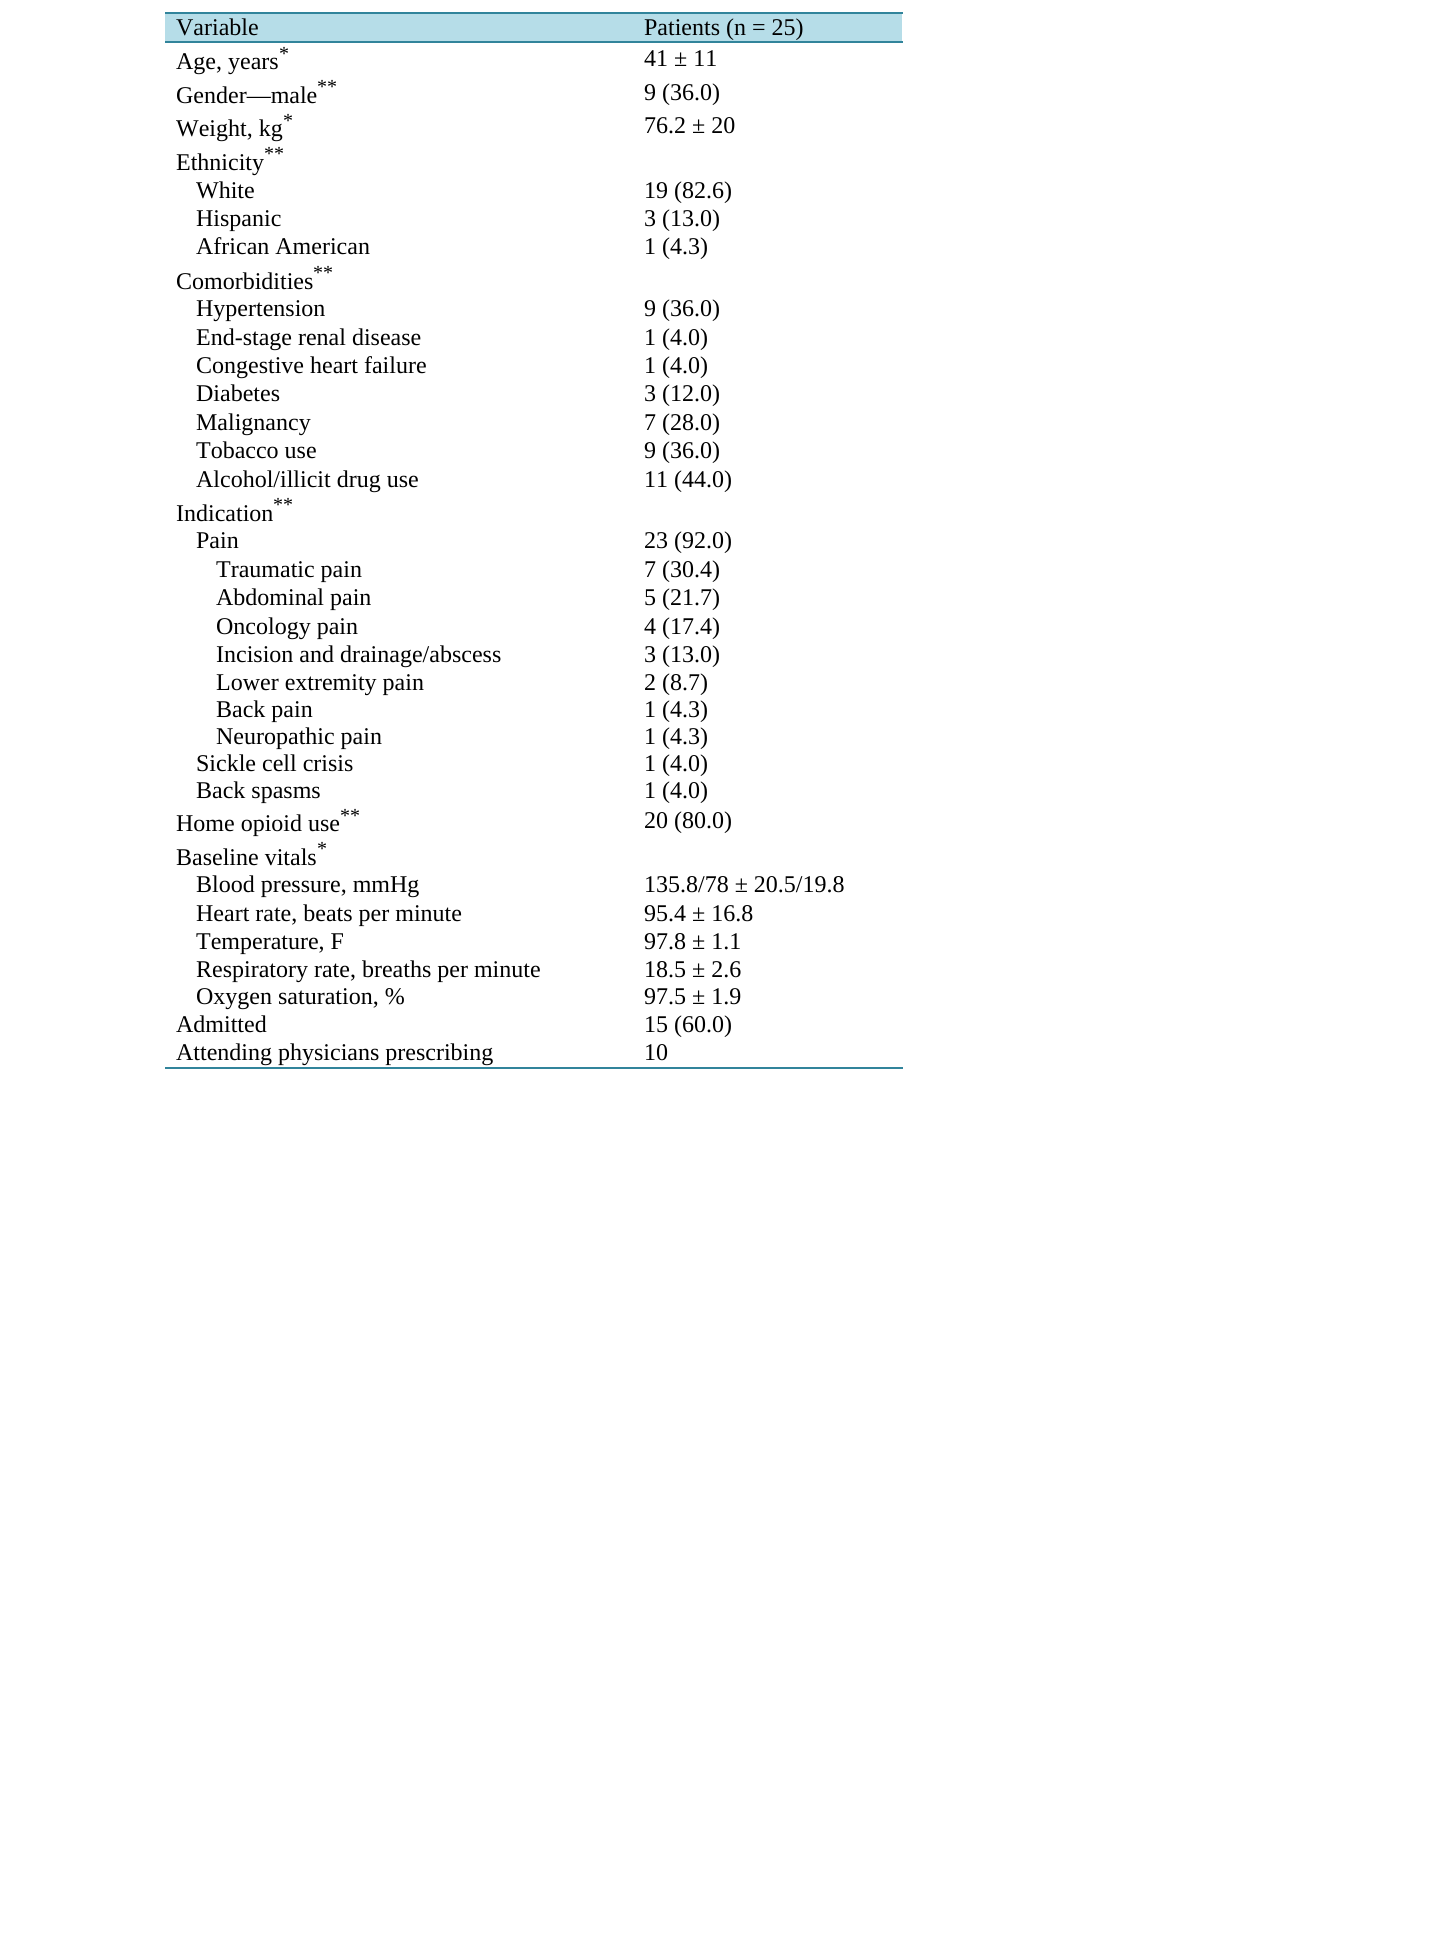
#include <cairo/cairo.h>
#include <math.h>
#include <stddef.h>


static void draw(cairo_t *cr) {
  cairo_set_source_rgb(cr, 1, 1, 1);
  cairo_paint(cr);
  cairo_set_source_rgb(cr, 182 / 255.0, 221 / 255.0, 232 / 255.0);
  cairo_rectangle(cr, 165, 14, 737, 27);
  cairo_fill(cr);
  cairo_set_source_rgb(cr, 49 / 255.0, 132 / 255.0, 155 / 255.0);
  cairo_rectangle(cr, 165, 12, 738, 2);
  cairo_fill(cr);
  cairo_rectangle(cr, 165, 41, 738, 2);
  cairo_fill(cr);
  cairo_rectangle(cr, 165, 1067, 738, 2);
  cairo_fill(cr);
  cairo_select_font_face(cr, "Liberation Serif", CAIRO_FONT_SLANT_NORMAL, CAIRO_FONT_WEIGHT_NORMAL);
  cairo_set_font_size(cr, 24);
  cairo_set_source_rgb(cr, 0, 0, 0);
  cairo_move_to(cr, 176, 35);
  cairo_show_text(cr, "Variable");
  cairo_move_to(cr, 644, 35);
  cairo_show_text(cr, "Patients (n = 25)");
  cairo_set_font_size(cr, 20);
  cairo_move_to(cr, 279, 60);
  cairo_show_text(cr, "*");
  cairo_set_font_size(cr, 24);
  cairo_move_to(cr, 176, 69);
  cairo_show_text(cr, "Age, years");
  cairo_move_to(cr, 644, 66);
  cairo_show_text(cr, "41 ± 11");
  cairo_set_font_size(cr, 20);
  cairo_move_to(cr, 317, 93);
  cairo_show_text(cr, "**");
  cairo_set_font_size(cr, 24);
  cairo_move_to(cr, 176, 103);
  cairo_show_text(cr, "Gender―male");
  cairo_move_to(cr, 644, 100);
  cairo_show_text(cr, "9 (36.0)");
  cairo_set_font_size(cr, 20);
  cairo_move_to(cr, 283, 127);
  cairo_show_text(cr, "*");
  cairo_set_font_size(cr, 24);
  cairo_move_to(cr, 176, 136);
  cairo_show_text(cr, "Weight, kg");
  cairo_move_to(cr, 644, 133);
  cairo_show_text(cr, "76.2 ± 20");
  cairo_set_font_size(cr, 20);
  cairo_move_to(cr, 264, 160);
  cairo_show_text(cr, "**");
  cairo_set_font_size(cr, 24);
  cairo_move_to(cr, 176, 170);
  cairo_show_text(cr, "Ethnicity");
  cairo_move_to(cr, 196, 198);
  cairo_show_text(cr, "White");
  cairo_move_to(cr, 644, 198);
  cairo_show_text(cr, "19 (82.6)");
  cairo_move_to(cr, 196, 226);
  cairo_show_text(cr, "Hispanic");
  cairo_move_to(cr, 644, 226);
  cairo_show_text(cr, "3 (13.0)");
  cairo_move_to(cr, 196, 254);
  cairo_show_text(cr, "African American");
  cairo_move_to(cr, 644, 254);
  cairo_show_text(cr, "1 (4.3)");
  cairo_set_font_size(cr, 20);
  cairo_move_to(cr, 313, 279);
  cairo_show_text(cr, "**");
  cairo_set_font_size(cr, 24);
  cairo_move_to(cr, 176, 289);
  cairo_show_text(cr, "Comorbidities");
  cairo_move_to(cr, 196, 316);
  cairo_show_text(cr, "Hypertension");
  cairo_move_to(cr, 644, 316);
  cairo_show_text(cr, "9 (36.0)");
  cairo_move_to(cr, 196, 345);
  cairo_show_text(cr, "End-stage renal disease");
  cairo_move_to(cr, 644, 345);
  cairo_show_text(cr, "1 (4.0)");
  cairo_move_to(cr, 196, 373);
  cairo_show_text(cr, "Congestive heart failure");
  cairo_move_to(cr, 644, 373);
  cairo_show_text(cr, "1 (4.0)");
  cairo_move_to(cr, 196, 401);
  cairo_show_text(cr, "Diabetes");
  cairo_move_to(cr, 644, 401);
  cairo_show_text(cr, "3 (12.0)");
  cairo_move_to(cr, 196, 430);
  cairo_show_text(cr, "Malignancy");
  cairo_move_to(cr, 644, 430);
  cairo_show_text(cr, "7 (28.0)");
  cairo_move_to(cr, 196, 458);
  cairo_show_text(cr, "Tobacco use");
  cairo_move_to(cr, 644, 458);
  cairo_show_text(cr, "9 (36.0)");
  cairo_move_to(cr, 196, 487);
  cairo_show_text(cr, "Alcohol/illicit drug use");
  cairo_move_to(cr, 644, 487);
  cairo_show_text(cr, "11 (44.0)");
  cairo_set_font_size(cr, 20);
  cairo_move_to(cr, 273, 511);
  cairo_show_text(cr, "**");
  cairo_set_font_size(cr, 24);
  cairo_move_to(cr, 176, 521);
  cairo_show_text(cr, "Indication");
  cairo_move_to(cr, 196, 548);
  cairo_show_text(cr, "Pain");
  cairo_move_to(cr, 644, 548);
  cairo_show_text(cr, "23 (92.0)");
  cairo_move_to(cr, 216, 577);
  cairo_show_text(cr, "Traumatic pain");
  cairo_move_to(cr, 644, 577);
  cairo_show_text(cr, "7 (30.4)");
  cairo_move_to(cr, 216, 605);
  cairo_show_text(cr, "Abdominal pain");
  cairo_move_to(cr, 644, 605);
  cairo_show_text(cr, "5 (21.7)");
  cairo_move_to(cr, 216, 634);
  cairo_show_text(cr, "Oncology pain");
  cairo_move_to(cr, 644, 634);
  cairo_show_text(cr, "4 (17.4)");
  cairo_move_to(cr, 216, 662);
  cairo_show_text(cr, "Incision and drainage/abscess");
  cairo_move_to(cr, 644, 662);
  cairo_show_text(cr, "3 (13.0)");
  cairo_move_to(cr, 216, 690);
  cairo_show_text(cr, "Lower extremity pain");
  cairo_move_to(cr, 644, 690);
  cairo_show_text(cr, "2 (8.7)");
  cairo_move_to(cr, 216, 717);
  cairo_show_text(cr, "Back pain");
  cairo_move_to(cr, 644, 717);
  cairo_show_text(cr, "1 (4.3)");
  cairo_move_to(cr, 216, 744);
  cairo_show_text(cr, "Neuropathic pain");
  cairo_move_to(cr, 644, 744);
  cairo_show_text(cr, "1 (4.3)");
  cairo_move_to(cr, 196, 771);
  cairo_show_text(cr, "Sickle cell crisis");
  cairo_move_to(cr, 644, 771);
  cairo_show_text(cr, "1 (4.0)");
  cairo_move_to(cr, 196, 798);
  cairo_show_text(cr, "Back spasms");
  cairo_move_to(cr, 644, 798);
  cairo_show_text(cr, "1 (4.0)");
  cairo_set_font_size(cr, 20);
  cairo_move_to(cr, 340, 822);
  cairo_show_text(cr, "**");
  cairo_set_font_size(cr, 24);
  cairo_move_to(cr, 176, 831);
  cairo_show_text(cr, "Home opioid use");
  cairo_move_to(cr, 644, 828);
  cairo_show_text(cr, "20 (80.0)");
  cairo_set_font_size(cr, 20);
  cairo_move_to(cr, 317, 855);
  cairo_show_text(cr, "*");
  cairo_set_font_size(cr, 24);
  cairo_move_to(cr, 176, 865);
  cairo_show_text(cr, "Baseline vitals");
  cairo_move_to(cr, 196, 892);
  cairo_show_text(cr, "Blood pressure, mmHg");
  cairo_move_to(cr, 644, 892);
  cairo_show_text(cr, "135.8/78 ± 20.5/19.8");
  cairo_move_to(cr, 196, 921);
  cairo_show_text(cr, "Heart rate, beats per minute");
  cairo_move_to(cr, 644, 921);
  cairo_show_text(cr, "95.4 ± 16.8");
  cairo_move_to(cr, 196, 949);
  cairo_show_text(cr, "Temperature, F");
  cairo_move_to(cr, 644, 949);
  cairo_show_text(cr, "97.8 ± 1.1");
  cairo_move_to(cr, 196, 977);
  cairo_show_text(cr, "Respiratory rate, breaths per minute");
  cairo_move_to(cr, 644, 977);
  cairo_show_text(cr, "18.5 ± 2.6");
  cairo_move_to(cr, 196, 1004);
  cairo_show_text(cr, "Oxygen saturation, %");
  cairo_move_to(cr, 644, 1004);
  cairo_show_text(cr, "97.5 ± 1.9");
  cairo_move_to(cr, 176, 1032);
  cairo_show_text(cr, "Admitted");
  cairo_move_to(cr, 644, 1032);
  cairo_show_text(cr, "15 (60.0)");
  cairo_move_to(cr, 176, 1060);
  cairo_show_text(cr, "Attending physicians prescribing");
  cairo_move_to(cr, 644, 1060);
  cairo_show_text(cr, "10");
}

int main(void) {
  cairo_surface_t *surface = cairo_image_surface_create(CAIRO_FORMAT_RGB24, 1452, 1945);
  cairo_t *cr = cairo_create(surface);
  cairo_font_options_t *options = cairo_font_options_create();
  cairo_font_options_set_hint_metrics(options, CAIRO_HINT_METRICS_OFF);
  cairo_font_options_set_hint_style(options, CAIRO_HINT_STYLE_NONE);
  cairo_set_font_options(cr, options);
  cairo_set_miter_limit(cr, 4);
  draw(cr);
  cairo_surface_write_to_png(surface, "out.png");
  cairo_font_options_destroy(options);
  cairo_destroy(cr);
  cairo_surface_destroy(surface);
  return 0;
}
